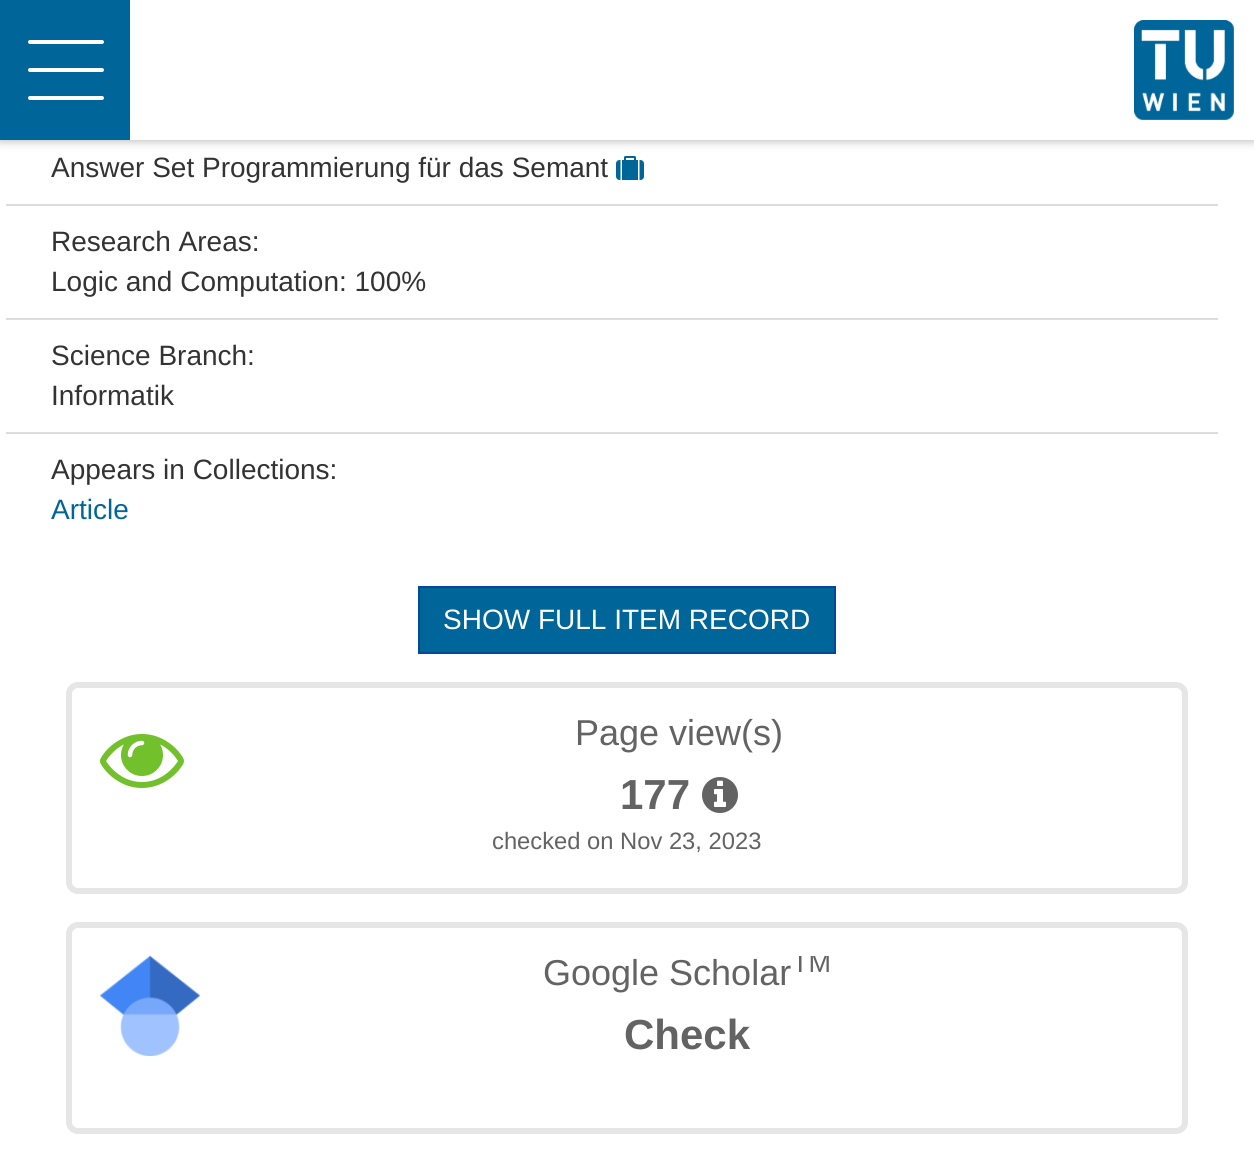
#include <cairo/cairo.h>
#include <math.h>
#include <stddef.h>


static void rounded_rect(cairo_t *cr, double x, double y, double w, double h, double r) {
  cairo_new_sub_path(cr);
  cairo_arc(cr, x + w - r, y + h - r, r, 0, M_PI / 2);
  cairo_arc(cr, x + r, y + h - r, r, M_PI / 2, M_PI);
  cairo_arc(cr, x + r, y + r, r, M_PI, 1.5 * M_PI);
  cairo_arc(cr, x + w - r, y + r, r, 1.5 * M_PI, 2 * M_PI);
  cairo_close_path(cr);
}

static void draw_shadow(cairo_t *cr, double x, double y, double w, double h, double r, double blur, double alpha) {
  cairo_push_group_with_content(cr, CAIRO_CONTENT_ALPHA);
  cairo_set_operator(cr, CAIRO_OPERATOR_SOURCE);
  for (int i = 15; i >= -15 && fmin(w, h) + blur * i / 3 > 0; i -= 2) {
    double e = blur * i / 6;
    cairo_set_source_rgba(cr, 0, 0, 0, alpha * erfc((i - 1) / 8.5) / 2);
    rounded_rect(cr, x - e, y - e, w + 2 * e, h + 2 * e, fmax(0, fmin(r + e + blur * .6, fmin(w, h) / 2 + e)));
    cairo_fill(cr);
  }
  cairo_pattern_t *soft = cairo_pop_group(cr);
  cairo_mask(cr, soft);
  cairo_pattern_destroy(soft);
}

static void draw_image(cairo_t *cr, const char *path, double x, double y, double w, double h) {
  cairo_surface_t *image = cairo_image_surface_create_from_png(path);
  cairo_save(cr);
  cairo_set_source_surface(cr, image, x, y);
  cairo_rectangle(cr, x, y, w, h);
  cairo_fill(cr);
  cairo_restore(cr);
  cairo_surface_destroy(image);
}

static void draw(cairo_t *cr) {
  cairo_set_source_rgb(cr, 1, 1, 1);
  cairo_paint(cr);
  cairo_set_source_rgb(cr, 170 / 255.0, 170 / 255.0, 170 / 255.0);
  draw_shadow(cr, 0, 0, 1254, 140, 0, 5, 1);
  cairo_set_source_rgb(cr, 1, 1, 1);
  cairo_rectangle(cr, 130, 0, 1124, 140);
  cairo_fill(cr);
  cairo_set_source_rgb(cr, 0, 102 / 255.0, 153 / 255.0);
  cairo_rectangle(cr, 0, 0, 130, 140);
  cairo_fill(cr);
  cairo_set_source_rgb(cr, 1, 1, 1);
  rounded_rect(cr, 28, 40, 76, 4, 2);
  cairo_fill(cr);
  rounded_rect(cr, 28, 68, 76, 4, 2);
  cairo_fill(cr);
  rounded_rect(cr, 28, 96, 76, 4, 2);
  cairo_fill(cr);
  draw_image(cr, "images/1.png", 1134, 20, 100, 100);
  draw_image(cr, "images/2.png", 616, 156, 28, 24);
  cairo_set_source_rgb(cr, 221 / 255.0, 221 / 255.0, 221 / 255.0);
  cairo_rectangle(cr, 6, 204, 1212, 2);
  cairo_fill(cr);
  cairo_rectangle(cr, 6, 318, 1212, 2);
  cairo_fill(cr);
  cairo_rectangle(cr, 6, 432, 1212, 2);
  cairo_fill(cr);
  cairo_set_source_rgb(cr, 0, 102 / 255.0, 153 / 255.0);
  cairo_rectangle(cr, 419, 587, 416, 66);
  cairo_fill_preserve(cr);
  cairo_set_source_rgb(cr, 3 / 255.0, 72 / 255.0, 153 / 255.0);
  cairo_stroke(cr);
  rounded_rect(cr, 69, 685, 1116, 206, 9);
  cairo_set_source_rgb(cr, 230 / 255.0, 230 / 255.0, 230 / 255.0);
  cairo_set_line_width(cr, 6);
  cairo_stroke(cr);
  draw_image(cr, "images/3.png", 100, 734, 84, 54);
  draw_image(cr, "images/4.png", 702, 777, 36, 36);
  rounded_rect(cr, 69, 925, 1116, 206, 9);
  cairo_stroke(cr);
  draw_image(cr, "images/5.png", 100, 956, 100, 100);
  cairo_select_font_face(cr, "Liberation Sans", CAIRO_FONT_SLANT_NORMAL, CAIRO_FONT_WEIGHT_NORMAL);
  cairo_set_font_size(cr, 28);
  cairo_set_source_rgb(cr, 51 / 255.0, 51 / 255.0, 51 / 255.0);
  cairo_move_to(cr, 51, 177);
  cairo_show_text(cr, "Answer Set Programmierung für das Semant");
  cairo_move_to(cr, 51, 251);
  cairo_show_text(cr, "Research Areas:");
  cairo_move_to(cr, 51, 291);
  cairo_show_text(cr, "Logic and Computation: 100%");
  cairo_move_to(cr, 51, 365);
  cairo_show_text(cr, "Science Branch:");
  cairo_move_to(cr, 51, 405);
  cairo_show_text(cr, "Informatik");
  cairo_move_to(cr, 51, 479);
  cairo_show_text(cr, "Appears in Collections:");
  cairo_set_source_rgb(cr, 0, 102 / 255.0, 153 / 255.0);
  cairo_move_to(cr, 51, 519);
  cairo_show_text(cr, "Article");
  cairo_set_source_rgb(cr, 1, 1, 1);
  cairo_move_to(cr, 443, 629);
  cairo_show_text(cr, "SHOW FULL ITEM RECORD");
  cairo_set_font_size(cr, 36);
  cairo_set_source_rgb(cr, 100 / 255.0, 99 / 255.0, 99 / 255.0);
  cairo_move_to(cr, 575, 745);
  cairo_show_text(cr, "Page view(s)");
  cairo_select_font_face(cr, "Liberation Sans", CAIRO_FONT_SLANT_NORMAL, CAIRO_FONT_WEIGHT_BOLD);
  cairo_set_font_size(cr, 42);
  cairo_move_to(cr, 620, 809);
  cairo_show_text(cr, "177");
  cairo_select_font_face(cr, "Liberation Sans", CAIRO_FONT_SLANT_NORMAL, CAIRO_FONT_WEIGHT_NORMAL);
  cairo_set_font_size(cr, 23.75);
  cairo_move_to(cr, 492, 849);
  cairo_show_text(cr, "checked on Nov 23, 2023");
  cairo_set_font_size(cr, 36);
  cairo_move_to(cr, 543, 985);
  cairo_show_text(cr, "Google Scholar");
  cairo_save(cr);
  cairo_rectangle(cr, 220, 956, 934, 110);
  cairo_clip(cr);
  cairo_set_font_size(cr, 27);
  cairo_move_to(cr, 792, 972);
  cairo_show_text(cr, "TM");
  cairo_restore(cr);
  cairo_select_font_face(cr, "Liberation Sans", CAIRO_FONT_SLANT_NORMAL, CAIRO_FONT_WEIGHT_BOLD);
  cairo_set_font_size(cr, 42);
  cairo_move_to(cr, 624, 1049);
  cairo_show_text(cr, "Check");
}

int main(void) {
  cairo_surface_t *surface = cairo_image_surface_create(CAIRO_FORMAT_RGB24, 1254, 1173);
  cairo_t *cr = cairo_create(surface);
  cairo_font_options_t *options = cairo_font_options_create();
  cairo_font_options_set_hint_metrics(options, CAIRO_HINT_METRICS_OFF);
  cairo_font_options_set_hint_style(options, CAIRO_HINT_STYLE_NONE);
  cairo_set_font_options(cr, options);
  cairo_set_miter_limit(cr, 4);
  draw(cr);
  cairo_surface_write_to_png(surface, "out.png");
  cairo_font_options_destroy(options);
  cairo_destroy(cr);
  cairo_surface_destroy(surface);
  return 0;
}
